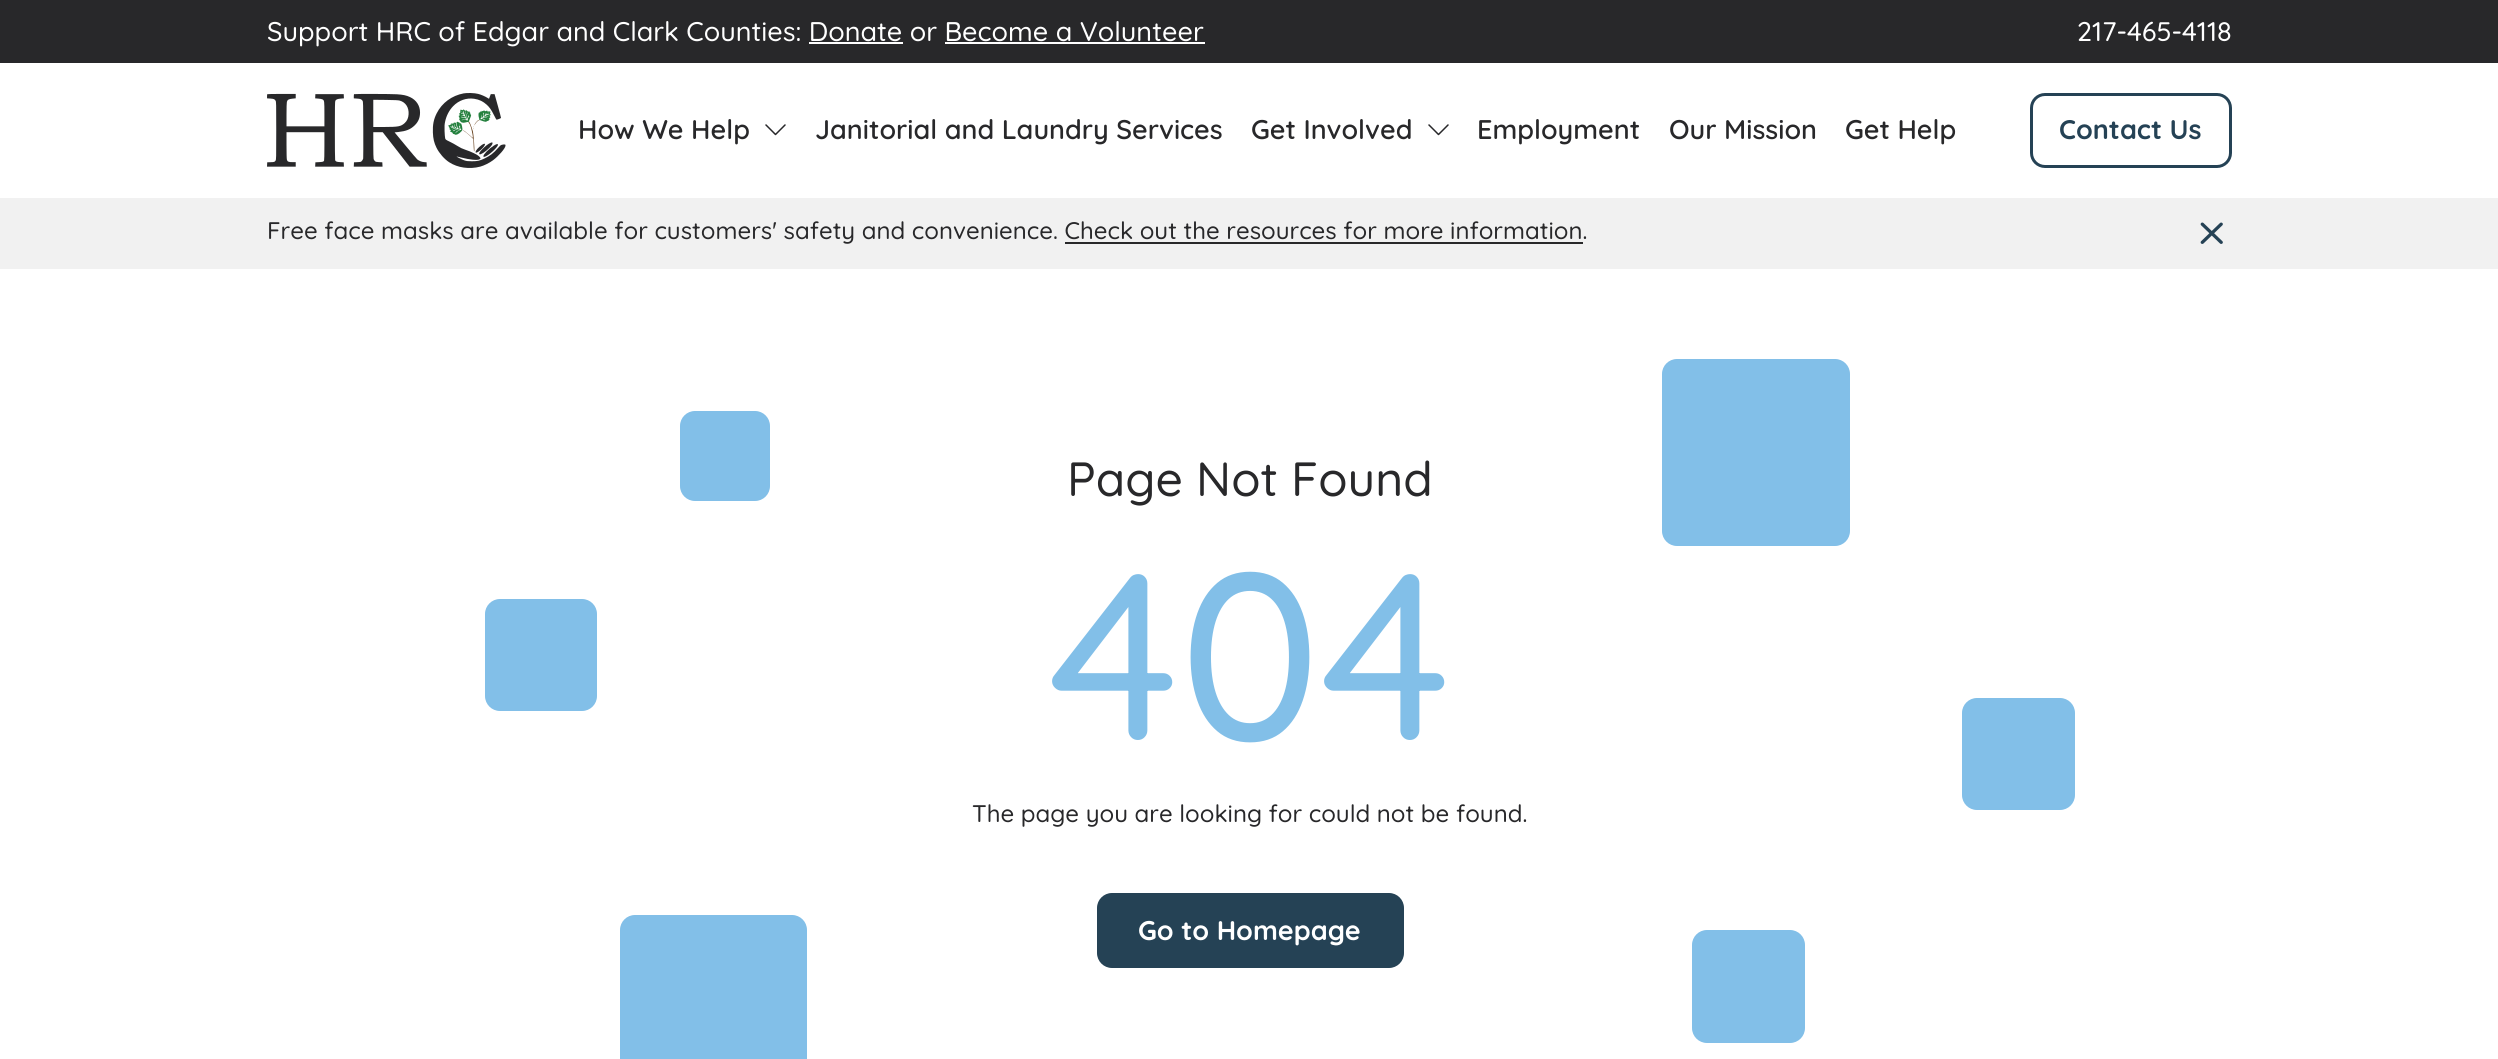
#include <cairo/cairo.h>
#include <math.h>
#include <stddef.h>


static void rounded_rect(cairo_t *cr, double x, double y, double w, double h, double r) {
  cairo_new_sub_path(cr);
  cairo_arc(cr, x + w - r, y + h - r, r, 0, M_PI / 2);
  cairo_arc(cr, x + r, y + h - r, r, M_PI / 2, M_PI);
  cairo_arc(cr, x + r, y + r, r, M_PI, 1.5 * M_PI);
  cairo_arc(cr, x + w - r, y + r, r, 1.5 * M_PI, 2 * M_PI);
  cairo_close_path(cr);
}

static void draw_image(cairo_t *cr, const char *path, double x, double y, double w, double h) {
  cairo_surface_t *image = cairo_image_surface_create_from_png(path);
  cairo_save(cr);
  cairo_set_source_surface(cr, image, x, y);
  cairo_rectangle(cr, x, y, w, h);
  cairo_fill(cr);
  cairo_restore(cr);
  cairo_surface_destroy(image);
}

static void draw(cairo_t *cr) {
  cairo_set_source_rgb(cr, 1, 1, 1);
  cairo_paint(cr);
  cairo_set_source_rgb(cr, 40 / 255.0, 40 / 255.0, 42 / 255.0);
  cairo_rectangle(cr, 0, 0, 2498, 63);
  cairo_fill(cr);
  cairo_set_source_rgb(cr, 1, 1, 1);
  cairo_rectangle(cr, 809, 42, 94, 2);
  cairo_fill(cr);
  cairo_rectangle(cr, 945, 42, 260, 2);
  cairo_fill(cr);
  draw_image(cr, "images/1.png", 267, 93, 239, 75);
  cairo_new_path(cr);
  cairo_move_to(cr, 785, 125);
  cairo_line_to(cr, 775.5, 134.5);
  cairo_line_to(cr, 766, 125);
  cairo_set_source_rgb(cr, 40 / 255.0, 40 / 255.0, 42 / 255.0);
  cairo_set_line_width(cr, 1.5);
  cairo_set_line_cap(cr, CAIRO_LINE_CAP_ROUND);
  cairo_set_line_join(cr, CAIRO_LINE_JOIN_ROUND);
  cairo_stroke(cr);
  cairo_new_path(cr);
  cairo_move_to(cr, 1448, 125);
  cairo_line_to(cr, 1438.5, 134.5);
  cairo_line_to(cr, 1429, 125);
  cairo_stroke(cr);
  rounded_rect(cr, 2031.5, 94.5, 199, 72, 13.5);
  cairo_set_source_rgb(cr, 37 / 255.0, 66 / 255.0, 85 / 255.0);
  cairo_set_line_width(cr, 3);
  cairo_set_line_cap(cr, CAIRO_LINE_CAP_BUTT);
  cairo_set_line_join(cr, CAIRO_LINE_JOIN_MITER);
  cairo_stroke(cr);
  cairo_set_source_rgb(cr, 241 / 255.0, 241 / 255.0, 241 / 255.0);
  cairo_rectangle(cr, 0, 198, 2498, 71);
  cairo_fill(cr);
  cairo_set_source_rgb(cr, 40 / 255.0, 40 / 255.0, 42 / 255.0);
  cairo_rectangle(cr, 1065, 242, 518, 2);
  cairo_fill(cr);
  draw_image(cr, "images/2.png", 2200, 222, 23, 22);
  cairo_set_source_rgb(cr, 130 / 255.0, 191 / 255.0, 232 / 255.0);
  rounded_rect(cr, 680, 411, 90, 90, 15);
  cairo_fill(cr);
  rounded_rect(cr, 1662, 359, 188, 187, 15);
  cairo_fill(cr);
  rounded_rect(cr, 485, 599, 112, 112, 15);
  cairo_fill(cr);
  rounded_rect(cr, 1962, 698, 113, 112, 15);
  cairo_fill(cr);
  rounded_rect(cr, 620, 915, 187, 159, 15);
  cairo_fill(cr);
  cairo_set_source_rgb(cr, 37 / 255.0, 66 / 255.0, 85 / 255.0);
  rounded_rect(cr, 1097, 893, 307, 75, 15);
  cairo_fill(cr);
  cairo_set_source_rgb(cr, 130 / 255.0, 191 / 255.0, 232 / 255.0);
  rounded_rect(cr, 1692, 930, 113, 113, 15);
  cairo_fill(cr);
  cairo_select_font_face(cr, "Quicksand Medium", CAIRO_FONT_SLANT_NORMAL, CAIRO_FONT_WEIGHT_NORMAL);
  cairo_set_font_size(cr, 27);
  cairo_set_source_rgb(cr, 1, 1, 1);
  cairo_move_to(cr, 267, 41);
  cairo_show_text(cr, "Support HRC of Edgar and Clark Counties: Donate or Become a Volunteer");
  cairo_move_to(cr, 2077, 41);
  cairo_show_text(cr, "217-465-4118");
  cairo_select_font_face(cr, "Quicksand SemiBold", CAIRO_FONT_SLANT_NORMAL, CAIRO_FONT_WEIGHT_NORMAL);
  cairo_set_source_rgb(cr, 40 / 255.0, 40 / 255.0, 42 / 255.0);
  cairo_move_to(cr, 578, 139);
  cairo_show_text(cr, "How We Help");
  cairo_move_to(cr, 815, 139);
  cairo_show_text(cr, "Janitorial and Laundry Services");
  cairo_move_to(cr, 1251, 139);
  cairo_show_text(cr, "Get Involved");
  cairo_move_to(cr, 1477, 139);
  cairo_show_text(cr, "Employment");
  cairo_move_to(cr, 1669, 139);
  cairo_show_text(cr, "Our Mission");
  cairo_move_to(cr, 1845, 139);
  cairo_show_text(cr, "Get Help");
  cairo_select_font_face(cr, "Quicksand", CAIRO_FONT_SLANT_NORMAL, CAIRO_FONT_WEIGHT_BOLD);
  cairo_set_source_rgb(cr, 37 / 255.0, 66 / 255.0, 85 / 255.0);
  cairo_move_to(cr, 2059, 139);
  cairo_show_text(cr, "Contact Us");
  cairo_select_font_face(cr, "Quicksand Medium", CAIRO_FONT_SLANT_NORMAL, CAIRO_FONT_WEIGHT_NORMAL);
  cairo_set_font_size(cr, 24);
  cairo_set_source_rgb(cr, 40 / 255.0, 40 / 255.0, 42 / 255.0);
  cairo_move_to(cr, 267, 239);
  cairo_show_text(cr, "Free face masks are available for customers' safety and convenience. Check out the resources for more information.");
  cairo_set_font_size(cr, 48);
  cairo_move_to(cr, 1067, 496);
  cairo_show_text(cr, "Page Not Found");
  cairo_set_font_size(cr, 237);
  cairo_set_source_rgb(cr, 130 / 255.0, 191 / 255.0, 232 / 255.0);
  cairo_move_to(cr, 1049, 740);
  cairo_show_text(cr, "404");
  cairo_set_font_size(cr, 24);
  cairo_set_source_rgb(cr, 40 / 255.0, 40 / 255.0, 42 / 255.0);
  cairo_move_to(cr, 972, 822);
  cairo_show_text(cr, "The page you are looking for could not be found.");
  cairo_select_font_face(cr, "Quicksand", CAIRO_FONT_SLANT_NORMAL, CAIRO_FONT_WEIGHT_BOLD);
  cairo_set_font_size(cr, 27);
  cairo_set_source_rgb(cr, 1, 1, 1);
  cairo_move_to(cr, 1138, 940);
  cairo_show_text(cr, "Go to Homepage");
}

int main(void) {
  cairo_surface_t *surface = cairo_image_surface_create(CAIRO_FORMAT_RGB24, 2498, 1059);
  cairo_t *cr = cairo_create(surface);
  cairo_font_options_t *options = cairo_font_options_create();
  cairo_font_options_set_hint_metrics(options, CAIRO_HINT_METRICS_OFF);
  cairo_font_options_set_hint_style(options, CAIRO_HINT_STYLE_NONE);
  cairo_set_font_options(cr, options);
  cairo_set_miter_limit(cr, 4);
  draw(cr);
  cairo_surface_write_to_png(surface, "out.png");
  cairo_font_options_destroy(options);
  cairo_destroy(cr);
  cairo_surface_destroy(surface);
  return 0;
}
